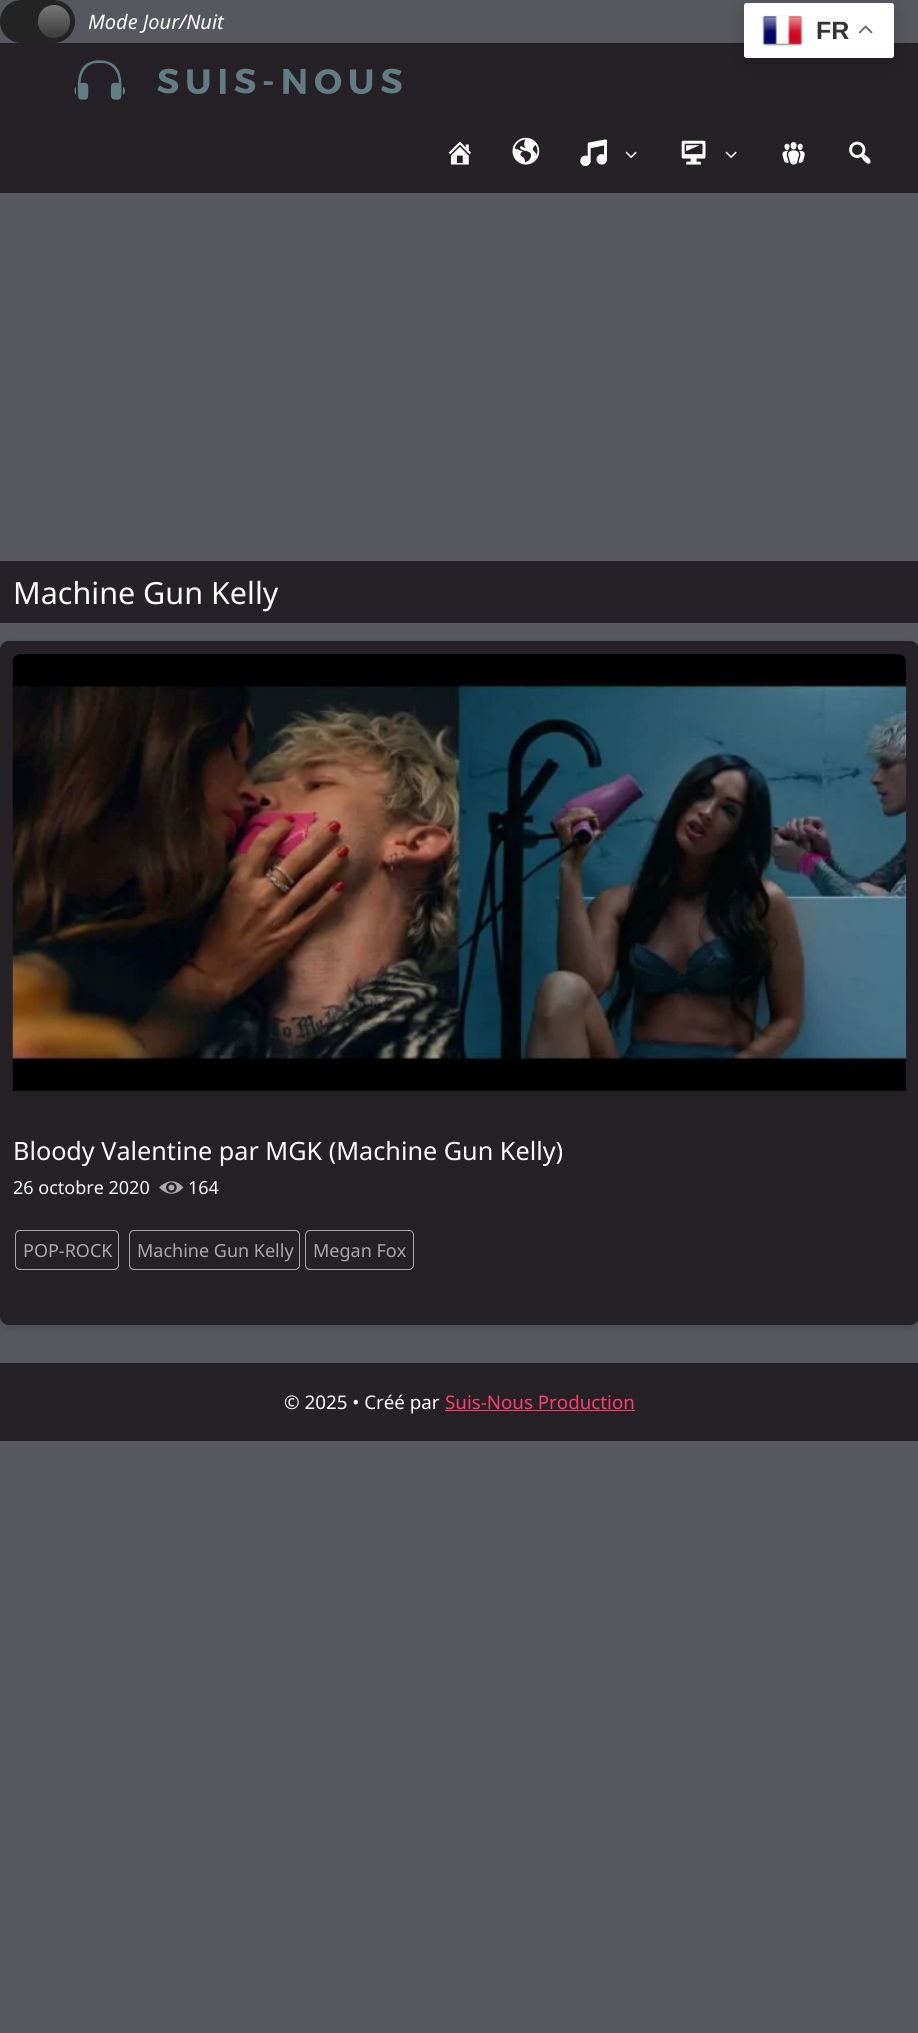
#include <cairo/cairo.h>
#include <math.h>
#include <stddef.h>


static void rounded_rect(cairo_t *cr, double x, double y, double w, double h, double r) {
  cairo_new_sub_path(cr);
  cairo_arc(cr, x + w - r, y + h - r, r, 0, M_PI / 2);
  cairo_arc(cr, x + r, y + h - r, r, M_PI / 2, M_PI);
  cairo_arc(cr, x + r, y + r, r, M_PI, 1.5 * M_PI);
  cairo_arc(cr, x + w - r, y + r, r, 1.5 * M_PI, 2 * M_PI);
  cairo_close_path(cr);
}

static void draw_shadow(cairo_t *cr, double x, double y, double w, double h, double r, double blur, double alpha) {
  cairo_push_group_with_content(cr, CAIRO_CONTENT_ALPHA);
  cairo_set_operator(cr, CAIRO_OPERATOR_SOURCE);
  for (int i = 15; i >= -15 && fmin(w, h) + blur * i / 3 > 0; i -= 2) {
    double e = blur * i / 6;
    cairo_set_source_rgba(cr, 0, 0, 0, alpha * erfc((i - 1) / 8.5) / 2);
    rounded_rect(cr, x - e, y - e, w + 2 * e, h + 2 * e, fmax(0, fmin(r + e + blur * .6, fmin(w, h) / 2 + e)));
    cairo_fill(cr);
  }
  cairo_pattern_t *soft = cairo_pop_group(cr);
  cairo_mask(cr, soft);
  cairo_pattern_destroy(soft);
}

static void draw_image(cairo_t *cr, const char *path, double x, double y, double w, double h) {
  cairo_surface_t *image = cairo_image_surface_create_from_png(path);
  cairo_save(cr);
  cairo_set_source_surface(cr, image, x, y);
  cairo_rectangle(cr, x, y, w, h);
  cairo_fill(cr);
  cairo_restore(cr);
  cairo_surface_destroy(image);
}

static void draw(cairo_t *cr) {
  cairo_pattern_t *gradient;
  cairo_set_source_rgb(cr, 87 / 255.0, 87 / 255.0, 96 / 255.0);
  cairo_paint(cr);
  cairo_set_source_rgb(cr, 36 / 255.0, 36 / 255.0, 36 / 255.0);
  rounded_rect(cr, 0, 0, 75, 43, 21.5);
  cairo_fill(cr);
  gradient = cairo_pattern_create_linear(54, 5, 54, 38);
  cairo_pattern_add_color_stop_rgba(gradient, 0, 119 / 255.0, 119 / 255.0, 119 / 255.0, 1);
  cairo_pattern_add_color_stop_rgba(gradient, 1, 58 / 255.0, 58 / 255.0, 58 / 255.0, 1);
  cairo_set_source(cr, gradient);
  cairo_pattern_destroy(gradient);
  rounded_rect(cr, 38, 5, 32, 33, 16);
  cairo_fill(cr);
  cairo_set_source_rgb(cr, 37 / 255.0, 33 / 255.0, 39 / 255.0);
  cairo_rectangle(cr, 0, 43, 918, 150);
  cairo_fill(cr);
  cairo_set_source_rgb(cr, 0, 0, 0);
  draw_shadow(cr, 744, 9, 150, 55, 2.5, 9.5, 0.15);
  cairo_set_source_rgb(cr, 1, 1, 1);
  rounded_rect(cr, 744, 3, 150, 55, 2.5);
  cairo_fill(cr);
  draw_image(cr, "images/1.png", 762, 15, 41, 32);
  draw_image(cr, "images/2.png", 859, 25, 14, 9);
  draw_image(cr, "images/3.png", 74, 60, 328, 40);
  draw_image(cr, "images/4.png", 448, 141, 23, 24);
  draw_image(cr, "images/5.png", 512, 137, 28, 28);
  draw_image(cr, "images/6.png", 580, 139, 27, 27);
  draw_image(cr, "images/7.png", 625, 151, 12, 7);
  draw_image(cr, "images/8.png", 681, 140, 25, 25);
  draw_image(cr, "images/7.png", 725, 151, 12, 7);
  draw_image(cr, "images/9.png", 782, 142, 23, 23);
  draw_image(cr, "images/10.png", 849, 141, 22, 23);
  cairo_set_source_rgb(cr, 37 / 255.0, 33 / 255.0, 39 / 255.0);
  cairo_rectangle(cr, 0, 561, 918, 62);
  cairo_fill(cr);
  cairo_set_source_rgb(cr, 0, 0, 0);
  draw_shadow(cr, 0, 644, 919, 684, 9, 4, 0.15);
  cairo_set_source_rgb(cr, 37 / 255.0, 33 / 255.0, 39 / 255.0);
  rounded_rect(cr, 0, 641, 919, 684, 9);
  cairo_fill(cr);
  draw_image(cr, "images/11.png", 12, 654, 895, 437);
  draw_image(cr, "images/12.png", 159, 1181, 25, 13);
  rounded_rect(cr, 15.5, 1230.5, 103, 39, 4.5);
  cairo_set_source_rgb(cr, 169 / 255.0, 169 / 255.0, 169 / 255.0);
  cairo_set_line_width(cr, 1);
  cairo_stroke(cr);
  rounded_rect(cr, 129.5, 1230.5, 170, 39, 4.5);
  cairo_stroke(cr);
  rounded_rect(cr, 305.5, 1230.5, 108, 39, 4.5);
  cairo_stroke(cr);
  cairo_set_source_rgb(cr, 37 / 255.0, 33 / 255.0, 39 / 255.0);
  cairo_rectangle(cr, 0, 1363, 918, 78);
  cairo_fill(cr);
  cairo_set_source_rgb(cr, 1, 61 / 255.0, 109 / 255.0);
  cairo_rectangle(cr, 445, 1410, 190, 1);
  cairo_fill(cr);
  cairo_select_font_face(cr, "Noto Sans", CAIRO_FONT_SLANT_ITALIC, CAIRO_FONT_WEIGHT_NORMAL);
  cairo_set_font_size(cr, 20);
  cairo_set_source_rgb(cr, 1, 1, 1);
  cairo_move_to(cr, 88, 29);
  cairo_show_text(cr, "Mode Jour/Nuit");
  cairo_select_font_face(cr, "Liberation Sans", CAIRO_FONT_SLANT_NORMAL, CAIRO_FONT_WEIGHT_BOLD);
  cairo_set_font_size(cr, 25);
  cairo_set_source_rgb(cr, 51 / 255.0, 51 / 255.0, 51 / 255.0);
  cairo_move_to(cr, 816, 39);
  cairo_show_text(cr, "FR");
  cairo_select_font_face(cr, "Noto Sans", CAIRO_FONT_SLANT_NORMAL, CAIRO_FONT_WEIGHT_NORMAL);
  cairo_set_font_size(cr, 30.5);
  cairo_set_source_rgb(cr, 1, 1, 1);
  cairo_move_to(cr, 13, 604);
  cairo_show_text(cr, "Machine Gun Kelly");
  cairo_set_font_size(cr, 25.2);
  cairo_move_to(cr, 13, 1160);
  cairo_show_text(cr, "Bloody Valentine par MGK (Machine Gun Kelly)");
  cairo_set_font_size(cr, 18);
  cairo_set_source_rgb(cr, 247 / 255.0, 248 / 255.0, 249 / 255.0);
  cairo_move_to(cr, 13, 1194);
  cairo_show_text(cr, "26 octobre 2020");
  cairo_move_to(cr, 188, 1194);
  cairo_show_text(cr, "164");
  cairo_set_source_rgb(cr, 169 / 255.0, 169 / 255.0, 169 / 255.0);
  cairo_move_to(cr, 23, 1257);
  cairo_show_text(cr, "POP-ROCK");
  cairo_move_to(cr, 137, 1257);
  cairo_show_text(cr, "Machine Gun Kelly");
  cairo_move_to(cr, 313, 1257);
  cairo_show_text(cr, "Megan Fox");
  cairo_set_font_size(cr, 18.75);
  cairo_set_source_rgb(cr, 1, 1, 1);
  cairo_move_to(cr, 284, 1409);
  cairo_show_text(cr, "© 2025 • Créé par");
  cairo_set_source_rgb(cr, 1, 61 / 255.0, 109 / 255.0);
  cairo_move_to(cr, 445, 1409);
  cairo_show_text(cr, "Suis-Nous Production");
}

int main(void) {
  cairo_surface_t *surface = cairo_image_surface_create(CAIRO_FORMAT_RGB24, 918, 2033);
  cairo_t *cr = cairo_create(surface);
  cairo_font_options_t *options = cairo_font_options_create();
  cairo_font_options_set_hint_metrics(options, CAIRO_HINT_METRICS_OFF);
  cairo_font_options_set_hint_style(options, CAIRO_HINT_STYLE_NONE);
  cairo_set_font_options(cr, options);
  cairo_set_miter_limit(cr, 4);
  draw(cr);
  cairo_surface_write_to_png(surface, "out.png");
  cairo_font_options_destroy(options);
  cairo_destroy(cr);
  cairo_surface_destroy(surface);
  return 0;
}
